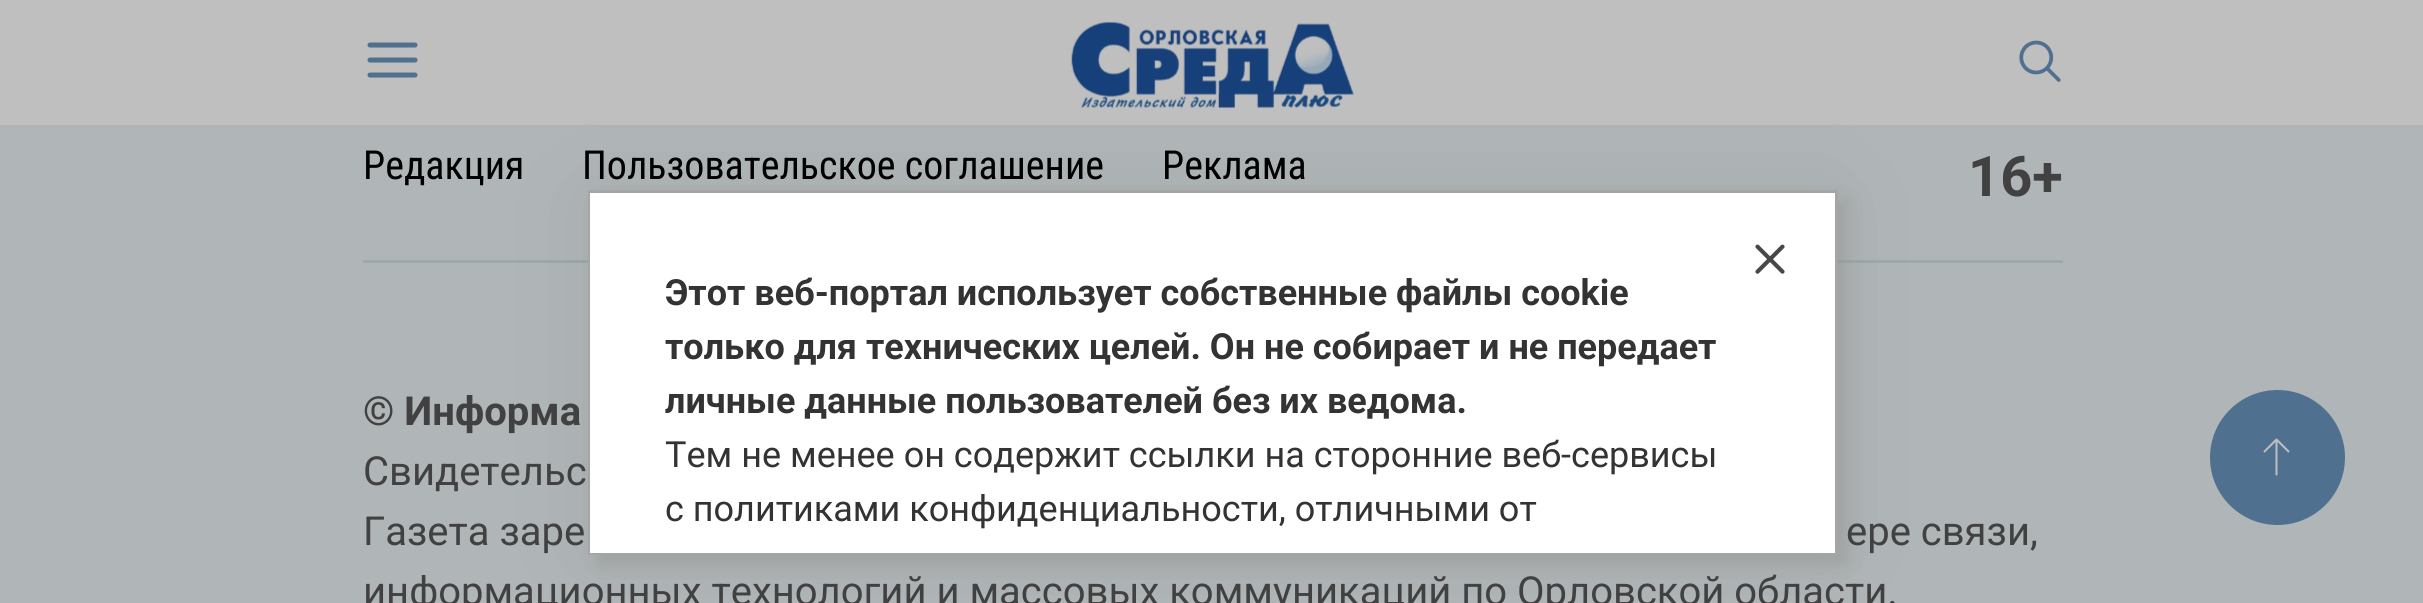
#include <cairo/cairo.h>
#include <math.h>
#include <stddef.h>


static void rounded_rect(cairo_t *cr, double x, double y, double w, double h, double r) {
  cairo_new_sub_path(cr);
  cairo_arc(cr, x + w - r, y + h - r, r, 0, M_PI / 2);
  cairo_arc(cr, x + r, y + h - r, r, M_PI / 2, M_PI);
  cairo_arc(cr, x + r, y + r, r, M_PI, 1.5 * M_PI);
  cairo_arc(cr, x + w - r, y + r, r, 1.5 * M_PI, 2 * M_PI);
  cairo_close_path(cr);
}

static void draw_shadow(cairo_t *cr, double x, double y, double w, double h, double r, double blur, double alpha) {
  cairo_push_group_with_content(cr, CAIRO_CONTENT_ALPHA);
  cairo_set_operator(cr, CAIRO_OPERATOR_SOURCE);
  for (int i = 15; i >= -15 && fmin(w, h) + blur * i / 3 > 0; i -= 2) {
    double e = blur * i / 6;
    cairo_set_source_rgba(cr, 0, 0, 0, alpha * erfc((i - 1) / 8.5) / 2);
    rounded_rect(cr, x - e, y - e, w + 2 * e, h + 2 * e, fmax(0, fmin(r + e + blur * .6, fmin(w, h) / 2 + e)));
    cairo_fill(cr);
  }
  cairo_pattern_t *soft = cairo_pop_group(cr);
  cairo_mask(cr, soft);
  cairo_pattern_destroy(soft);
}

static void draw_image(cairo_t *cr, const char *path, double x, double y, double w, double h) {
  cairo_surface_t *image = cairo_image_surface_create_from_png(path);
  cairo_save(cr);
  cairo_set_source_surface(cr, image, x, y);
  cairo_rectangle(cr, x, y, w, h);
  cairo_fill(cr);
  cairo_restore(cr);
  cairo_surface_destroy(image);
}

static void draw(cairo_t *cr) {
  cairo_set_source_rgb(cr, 176 / 255.0, 182 / 255.0, 183 / 255.0);
  cairo_paint(cr);
  cairo_set_source_rgb(cr, 191 / 255.0, 191 / 255.0, 191 / 255.0);
  cairo_rectangle(cr, 0, 0, 2423, 125);
  cairo_fill(cr);
  cairo_set_source_rgb(cr, 179 / 255.0, 179 / 255.0, 179 / 255.0);
  cairo_rectangle(cr, 0, 125, 2423, 3);
  cairo_fill(cr);
  draw_image(cr, "images/1.png", 367, 42, 51, 36);
  draw_image(cr, "images/2.png", 1071, 21, 283, 88);
  draw_image(cr, "images/3.png", 2019, 40, 42, 42);
  cairo_set_source_rgb(cr, 158 / 255.0, 170 / 255.0, 170 / 255.0);
  cairo_rectangle(cr, 363, 260, 1700, 3);
  cairo_fill(cr);
  cairo_set_source_rgb(cr, 150 / 255.0, 150 / 255.0, 150 / 255.0);
  draw_shadow(cr, 598, 200, 1250, 365, 0, 10, 0.5);
  cairo_rectangle(cr, 589.5, 191.5, 1247, 362);
  cairo_set_source_rgb(cr, 170 / 255.0, 170 / 255.0, 170 / 255.0);
  cairo_set_line_width(cr, 3);
  cairo_stroke(cr);
  cairo_set_source_rgb(cr, 0, 0, 0);
  draw_shadow(cr, 590, 193, 1245, 360, 0, 50, 0.07);
  cairo_set_source_rgb(cr, 1, 1, 1);
  cairo_rectangle(cr, 590, 193, 1245, 360);
  cairo_fill(cr);
  draw_image(cr, "images/4.png", 1755, 244, 30, 30);
  cairo_set_source_rgb(cr, 80 / 255.0, 112 / 255.0, 143 / 255.0);
  cairo_arc(cr, 2277.5, 457.5, 67.5, 0, 2 * M_PI);
  cairo_fill(cr);
  draw_image(cr, "images/5.png", 2263, 438, 27, 38);
  cairo_select_font_face(cr, "Roboto Condensed", CAIRO_FONT_SLANT_NORMAL, CAIRO_FONT_WEIGHT_NORMAL);
  cairo_set_font_size(cr, 40);
  cairo_set_source_rgb(cr, 0, 0, 0);
  cairo_move_to(cr, 363, 179);
  cairo_show_text(cr, "Редакция");
  cairo_move_to(cr, 582, 179);
  cairo_show_text(cr, "Пользовательское соглашение");
  cairo_move_to(cr, 1162, 179);
  cairo_show_text(cr, "Реклама");
  cairo_select_font_face(cr, "Roboto", CAIRO_FONT_SLANT_NORMAL, CAIRO_FONT_WEIGHT_BOLD);
  cairo_set_font_size(cr, 56);
  cairo_set_source_rgb(cr, 65 / 255.0, 65 / 255.0, 65 / 255.0);
  cairo_move_to(cr, 1968, 196);
  cairo_show_text(cr, "16+");
  cairo_set_font_size(cr, 40);
  cairo_move_to(cr, 363, 425);
  cairo_show_text(cr, "© Информа");
  cairo_select_font_face(cr, "Roboto", CAIRO_FONT_SLANT_NORMAL, CAIRO_FONT_WEIGHT_NORMAL);
  cairo_move_to(cr, 363, 485);
  cairo_show_text(cr, "Свидетельс");
  cairo_move_to(cr, 363, 545);
  cairo_show_text(cr, "Газета заре");
  cairo_move_to(cr, 1846, 545);
  cairo_show_text(cr, "ере связи,");
  cairo_move_to(cr, 363, 605);
  cairo_show_text(cr, "информационных технологий и массовых коммуникаций по Орловской области.");
  cairo_select_font_face(cr, "Roboto", CAIRO_FONT_SLANT_NORMAL, CAIRO_FONT_WEIGHT_BOLD);
  cairo_set_font_size(cr, 36);
  cairo_set_source_rgb(cr, 51 / 255.0, 51 / 255.0, 51 / 255.0);
  cairo_move_to(cr, 665, 305);
  cairo_show_text(cr, "Этот веб-портал использует собственные файлы cookie");
  cairo_move_to(cr, 665, 359);
  cairo_show_text(cr, "только для технических целей. Он не собирает и не передает");
  cairo_move_to(cr, 665, 413);
  cairo_show_text(cr, "личные данные пользователей без их ведома.");
  cairo_select_font_face(cr, "Roboto", CAIRO_FONT_SLANT_NORMAL, CAIRO_FONT_WEIGHT_NORMAL);
  cairo_move_to(cr, 665, 467);
  cairo_show_text(cr, "Тем не менее он содержит ссылки на сторонние веб-сервисы");
  cairo_move_to(cr, 665, 521);
  cairo_show_text(cr, "с политиками конфиденциальности, отличными от");
}

int main(void) {
  cairo_surface_t *surface = cairo_image_surface_create(CAIRO_FORMAT_RGB24, 2423, 603);
  cairo_t *cr = cairo_create(surface);
  cairo_font_options_t *options = cairo_font_options_create();
  cairo_font_options_set_hint_metrics(options, CAIRO_HINT_METRICS_OFF);
  cairo_font_options_set_hint_style(options, CAIRO_HINT_STYLE_NONE);
  cairo_set_font_options(cr, options);
  cairo_set_miter_limit(cr, 4);
  draw(cr);
  cairo_surface_write_to_png(surface, "out.png");
  cairo_font_options_destroy(options);
  cairo_destroy(cr);
  cairo_surface_destroy(surface);
  return 0;
}
